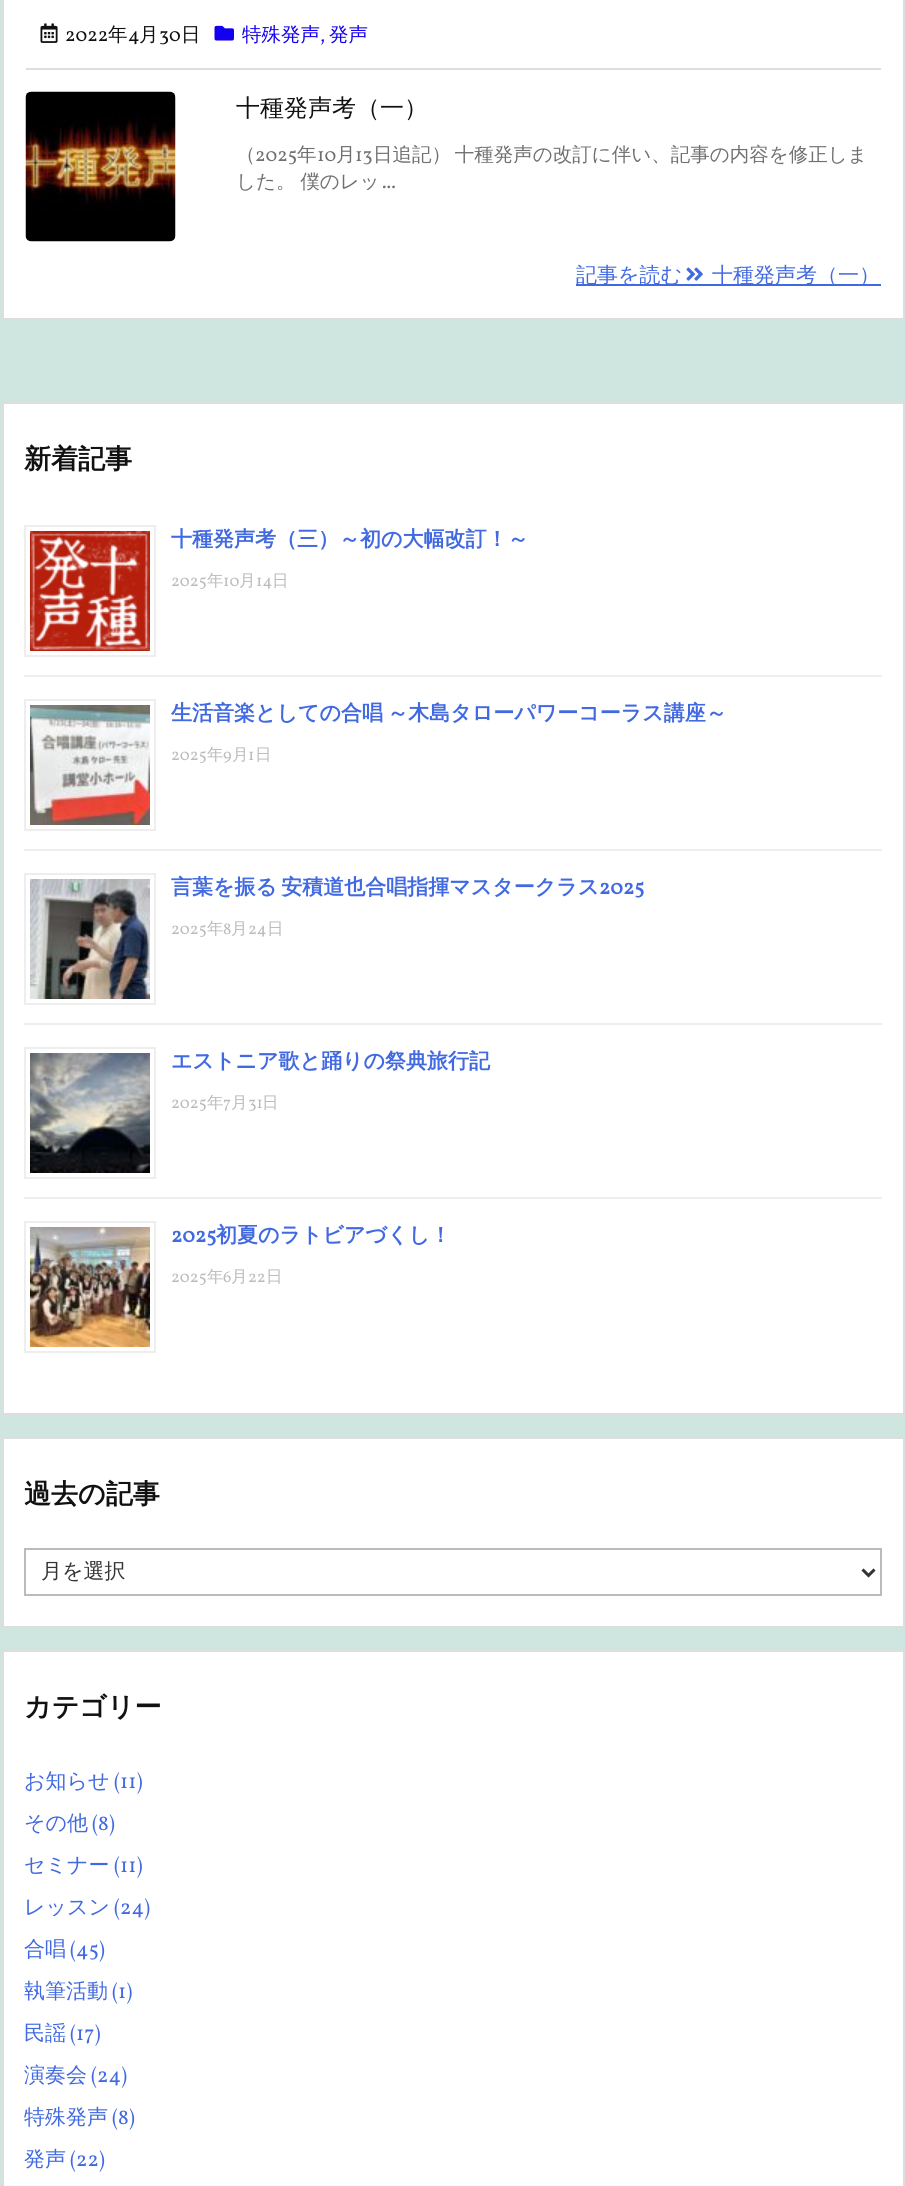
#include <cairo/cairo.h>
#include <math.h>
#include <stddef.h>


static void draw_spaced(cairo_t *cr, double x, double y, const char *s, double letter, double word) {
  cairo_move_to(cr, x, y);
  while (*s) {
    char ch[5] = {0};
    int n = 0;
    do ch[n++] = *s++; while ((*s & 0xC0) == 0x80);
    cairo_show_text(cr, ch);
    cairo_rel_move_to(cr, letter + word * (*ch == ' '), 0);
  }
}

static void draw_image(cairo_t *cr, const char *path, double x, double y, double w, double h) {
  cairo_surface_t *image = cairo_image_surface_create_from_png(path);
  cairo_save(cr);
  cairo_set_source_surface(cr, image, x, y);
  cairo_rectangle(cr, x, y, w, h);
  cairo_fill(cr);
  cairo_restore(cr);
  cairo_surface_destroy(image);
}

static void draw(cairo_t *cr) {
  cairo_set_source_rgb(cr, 206 / 255.0, 229 / 255.0, 224 / 255.0);
  cairo_paint(cr);
  cairo_set_source_rgb(cr, 1, 1, 1);
  cairo_rectangle(cr, 3, -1, 901, 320);
  cairo_fill_preserve(cr);
  cairo_set_source_rgb(cr, 221 / 255.0, 221 / 255.0, 221 / 255.0);
  cairo_stroke(cr);
  cairo_rectangle(cr, 26, 68, 855, 2);
  cairo_fill(cr);
  draw_image(cr, "images/1.png", 40, 23, 18, 20);
  draw_image(cr, "images/2.png", 214, 25, 20, 16);
  draw_image(cr, "images/3.png", 25, 91, 151, 151);
  cairo_set_source_rgb(cr, 65 / 255.0, 105 / 255.0, 225 / 255.0);
  cairo_rectangle(cr, 576, 284, 305, 2);
  cairo_fill(cr);
  draw_image(cr, "images/4.png", 686, 267, 17, 14);
  cairo_set_source_rgb(cr, 1, 1, 1);
  cairo_rectangle(cr, 3, 403, 901, 1011);
  cairo_fill_preserve(cr);
  cairo_set_source_rgb(cr, 221 / 255.0, 221 / 255.0, 221 / 255.0);
  cairo_stroke(cr);
  cairo_set_source_rgb(cr, 238 / 255.0, 238 / 255.0, 238 / 255.0);
  cairo_rectangle(cr, 24, 675, 858, 2);
  cairo_fill(cr);
  cairo_rectangle(cr, 25, 526, 130, 130);
  cairo_stroke(cr);
  draw_image(cr, "images/5.png", 30, 531, 120, 120);
  cairo_rectangle(cr, 24, 849, 858, 2);
  cairo_fill(cr);
  cairo_rectangle(cr, 25, 700, 130, 130);
  cairo_stroke(cr);
  draw_image(cr, "images/6.png", 30, 705, 120, 120);
  cairo_rectangle(cr, 24, 1023, 858, 2);
  cairo_fill(cr);
  cairo_rectangle(cr, 25, 874, 130, 130);
  cairo_stroke(cr);
  draw_image(cr, "images/7.png", 30, 879, 120, 120);
  cairo_rectangle(cr, 24, 1197, 858, 2);
  cairo_fill(cr);
  cairo_rectangle(cr, 25, 1048, 130, 130);
  cairo_stroke(cr);
  draw_image(cr, "images/8.png", 30, 1053, 120, 120);
  cairo_rectangle(cr, 25, 1222, 130, 130);
  cairo_stroke(cr);
  draw_image(cr, "images/9.png", 30, 1227, 120, 120);
  cairo_set_source_rgb(cr, 1, 1, 1);
  cairo_rectangle(cr, 3, 1438, 901, 189);
  cairo_fill_preserve(cr);
  cairo_set_source_rgb(cr, 221 / 255.0, 221 / 255.0, 221 / 255.0);
  cairo_stroke(cr);
  cairo_rectangle(cr, 25, 1549, 856, 46);
  cairo_set_source_rgb(cr, 187 / 255.0, 187 / 255.0, 187 / 255.0);
  cairo_stroke(cr);
  cairo_new_path(cr);
  cairo_move_to(cr, 862.5, 1569.5);
  cairo_line_to(cr, 868.5, 1575.5);
  cairo_line_to(cr, 874.5, 1569.5);
  cairo_set_source_rgb(cr, 51 / 255.0, 51 / 255.0, 51 / 255.0);
  cairo_set_line_width(cr, 3);
  cairo_stroke(cr);
  cairo_set_source_rgb(cr, 1, 1, 1);
  cairo_rectangle(cr, 3, 1651, 901, 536);
  cairo_fill_preserve(cr);
  cairo_set_source_rgb(cr, 221 / 255.0, 221 / 255.0, 221 / 255.0);
  cairo_set_line_width(cr, 2);
  cairo_stroke(cr);
  cairo_select_font_face(cr, "Vollkorn", CAIRO_FONT_SLANT_NORMAL, CAIRO_FONT_WEIGHT_NORMAL);
  cairo_set_font_size(cr, 19.5);
  cairo_set_source_rgb(cr, 17 / 255.0, 17 / 255.0, 17 / 255.0);
  cairo_move_to(cr, 65, 41);
  cairo_show_text(cr, "2022");
  cairo_select_font_face(cr, "WenQuanYi Zen Hei Medium", CAIRO_FONT_SLANT_NORMAL, CAIRO_FONT_WEIGHT_NORMAL);
  cairo_move_to(cr, 108, 41);
  cairo_show_text(cr, "年");
  cairo_select_font_face(cr, "Vollkorn", CAIRO_FONT_SLANT_NORMAL, CAIRO_FONT_WEIGHT_NORMAL);
  cairo_move_to(cr, 128, 41);
  cairo_show_text(cr, "4");
  cairo_select_font_face(cr, "WenQuanYi Zen Hei Medium", CAIRO_FONT_SLANT_NORMAL, CAIRO_FONT_WEIGHT_NORMAL);
  cairo_move_to(cr, 139, 41);
  cairo_show_text(cr, "月");
  cairo_select_font_face(cr, "Vollkorn", CAIRO_FONT_SLANT_NORMAL, CAIRO_FONT_WEIGHT_NORMAL);
  cairo_move_to(cr, 159, 41);
  cairo_show_text(cr, "30");
  cairo_select_font_face(cr, "WenQuanYi Zen Hei Medium", CAIRO_FONT_SLANT_NORMAL, CAIRO_FONT_WEIGHT_NORMAL);
  cairo_move_to(cr, 181, 41);
  cairo_show_text(cr, "日");
  cairo_set_source_rgb(cr, 19 / 255.0, 0, 239 / 255.0);
  cairo_move_to(cr, 242, 41);
  cairo_show_text(cr, "特殊発声");
  cairo_select_font_face(cr, "Vollkorn", CAIRO_FONT_SLANT_NORMAL, CAIRO_FONT_WEIGHT_NORMAL);
  cairo_move_to(cr, 320, 41);
  cairo_show_text(cr, ",");
  cairo_select_font_face(cr, "WenQuanYi Zen Hei Medium", CAIRO_FONT_SLANT_NORMAL, CAIRO_FONT_WEIGHT_NORMAL);
  cairo_move_to(cr, 329, 41);
  cairo_show_text(cr, "発声");
  cairo_set_font_size(cr, 24);
  cairo_set_source_rgb(cr, 17 / 255.0, 17 / 255.0, 17 / 255.0);
  cairo_move_to(cr, 236, 116);
  cairo_show_text(cr, "十種発声考（一）");
  cairo_set_font_size(cr, 19.5);
  cairo_set_source_rgb(cr, 112 / 255.0, 112 / 255.0, 112 / 255.0);
  cairo_move_to(cr, 236, 161);
  cairo_show_text(cr, "（");
  cairo_select_font_face(cr, "Vollkorn", CAIRO_FONT_SLANT_NORMAL, CAIRO_FONT_WEIGHT_NORMAL);
  cairo_move_to(cr, 255, 161);
  cairo_show_text(cr, "2025");
  cairo_select_font_face(cr, "WenQuanYi Zen Hei Medium", CAIRO_FONT_SLANT_NORMAL, CAIRO_FONT_WEIGHT_NORMAL);
  cairo_move_to(cr, 297, 161);
  cairo_show_text(cr, "年");
  cairo_select_font_face(cr, "Vollkorn", CAIRO_FONT_SLANT_NORMAL, CAIRO_FONT_WEIGHT_NORMAL);
  cairo_move_to(cr, 317, 161);
  cairo_show_text(cr, "10");
  cairo_select_font_face(cr, "WenQuanYi Zen Hei Medium", CAIRO_FONT_SLANT_NORMAL, CAIRO_FONT_WEIGHT_NORMAL);
  cairo_move_to(cr, 336, 161);
  cairo_show_text(cr, "月");
  cairo_select_font_face(cr, "Vollkorn", CAIRO_FONT_SLANT_NORMAL, CAIRO_FONT_WEIGHT_NORMAL);
  cairo_move_to(cr, 355, 161);
  cairo_show_text(cr, "13");
  cairo_select_font_face(cr, "WenQuanYi Zen Hei Medium", CAIRO_FONT_SLANT_NORMAL, CAIRO_FONT_WEIGHT_NORMAL);
  draw_spaced(cr, 373, 161, "日追記） 十種発声の改訂に伴い、記事の内容を修正しま", 0, -2);
  draw_spaced(cr, 236, 188, "した。 僕のレッ", 0, -1);
  cairo_select_font_face(cr, "Vollkorn", CAIRO_FONT_SLANT_NORMAL, CAIRO_FONT_WEIGHT_NORMAL);
  cairo_move_to(cr, 382, 188);
  cairo_show_text(cr, "...");
  cairo_select_font_face(cr, "WenQuanYi Zen Hei Medium", CAIRO_FONT_SLANT_NORMAL, CAIRO_FONT_WEIGHT_NORMAL);
  cairo_set_font_size(cr, 21);
  cairo_set_source_rgb(cr, 65 / 255.0, 105 / 255.0, 225 / 255.0);
  cairo_move_to(cr, 576, 282);
  cairo_show_text(cr, "記事を読む");
  cairo_move_to(cr, 712, 282);
  cairo_show_text(cr, "十種発声考（一）");
  cairo_select_font_face(cr, "WenQuanYi Zen Hei", CAIRO_FONT_SLANT_NORMAL, CAIRO_FONT_WEIGHT_BOLD);
  cairo_set_font_size(cr, 27);
  cairo_set_source_rgb(cr, 17 / 255.0, 17 / 255.0, 17 / 255.0);
  cairo_move_to(cr, 24, 468);
  cairo_show_text(cr, "新着記事");
  cairo_set_font_size(cr, 21);
  cairo_set_source_rgb(cr, 65 / 255.0, 105 / 255.0, 225 / 255.0);
  cairo_move_to(cr, 171, 546);
  cairo_show_text(cr, "十種発声考（三）～初の大幅改訂！～");
  cairo_select_font_face(cr, "Vollkorn", CAIRO_FONT_SLANT_NORMAL, CAIRO_FONT_WEIGHT_NORMAL);
  cairo_set_font_size(cr, 16.5);
  cairo_set_source_rgb(cr, 187 / 255.0, 187 / 255.0, 187 / 255.0);
  cairo_move_to(cr, 171, 586);
  cairo_show_text(cr, "2025");
  cairo_select_font_face(cr, "WenQuanYi Zen Hei Medium", CAIRO_FONT_SLANT_NORMAL, CAIRO_FONT_WEIGHT_NORMAL);
  cairo_move_to(cr, 207, 586);
  cairo_show_text(cr, "年");
  cairo_select_font_face(cr, "Vollkorn", CAIRO_FONT_SLANT_NORMAL, CAIRO_FONT_WEIGHT_NORMAL);
  cairo_move_to(cr, 223, 586);
  cairo_show_text(cr, "10");
  cairo_select_font_face(cr, "WenQuanYi Zen Hei Medium", CAIRO_FONT_SLANT_NORMAL, CAIRO_FONT_WEIGHT_NORMAL);
  cairo_move_to(cr, 239, 586);
  cairo_show_text(cr, "月");
  cairo_select_font_face(cr, "Vollkorn", CAIRO_FONT_SLANT_NORMAL, CAIRO_FONT_WEIGHT_NORMAL);
  cairo_move_to(cr, 256, 586);
  cairo_show_text(cr, "14");
  cairo_select_font_face(cr, "WenQuanYi Zen Hei Medium", CAIRO_FONT_SLANT_NORMAL, CAIRO_FONT_WEIGHT_NORMAL);
  cairo_move_to(cr, 272, 586);
  cairo_show_text(cr, "日");
  cairo_select_font_face(cr, "WenQuanYi Zen Hei", CAIRO_FONT_SLANT_NORMAL, CAIRO_FONT_WEIGHT_BOLD);
  cairo_set_font_size(cr, 21);
  cairo_set_source_rgb(cr, 65 / 255.0, 105 / 255.0, 225 / 255.0);
  draw_spaced(cr, 171, 720, "生活音楽としての合唱 ～木島タローパワーコーラス講座～", 0, -2);
  cairo_select_font_face(cr, "Vollkorn", CAIRO_FONT_SLANT_NORMAL, CAIRO_FONT_WEIGHT_NORMAL);
  cairo_set_font_size(cr, 16.5);
  cairo_set_source_rgb(cr, 187 / 255.0, 187 / 255.0, 187 / 255.0);
  cairo_move_to(cr, 171, 760);
  cairo_show_text(cr, "2025");
  cairo_select_font_face(cr, "WenQuanYi Zen Hei Medium", CAIRO_FONT_SLANT_NORMAL, CAIRO_FONT_WEIGHT_NORMAL);
  cairo_move_to(cr, 207, 760);
  cairo_show_text(cr, "年");
  cairo_select_font_face(cr, "Vollkorn", CAIRO_FONT_SLANT_NORMAL, CAIRO_FONT_WEIGHT_NORMAL);
  cairo_move_to(cr, 223, 760);
  cairo_show_text(cr, "9");
  cairo_select_font_face(cr, "WenQuanYi Zen Hei Medium", CAIRO_FONT_SLANT_NORMAL, CAIRO_FONT_WEIGHT_NORMAL);
  cairo_move_to(cr, 232, 760);
  cairo_show_text(cr, "月");
  cairo_select_font_face(cr, "Vollkorn", CAIRO_FONT_SLANT_NORMAL, CAIRO_FONT_WEIGHT_NORMAL);
  cairo_move_to(cr, 248, 760);
  cairo_show_text(cr, "1");
  cairo_select_font_face(cr, "WenQuanYi Zen Hei Medium", CAIRO_FONT_SLANT_NORMAL, CAIRO_FONT_WEIGHT_NORMAL);
  cairo_move_to(cr, 255, 760);
  cairo_show_text(cr, "日");
  cairo_select_font_face(cr, "WenQuanYi Zen Hei", CAIRO_FONT_SLANT_NORMAL, CAIRO_FONT_WEIGHT_BOLD);
  cairo_set_font_size(cr, 21);
  cairo_set_source_rgb(cr, 65 / 255.0, 105 / 255.0, 225 / 255.0);
  draw_spaced(cr, 171, 894, "言葉を振る 安積道也合唱指揮マスタークラス", 0, -2);
  cairo_select_font_face(cr, "Vollkorn", CAIRO_FONT_SLANT_NORMAL, CAIRO_FONT_WEIGHT_BOLD);
  cairo_move_to(cr, 599, 894);
  cairo_show_text(cr, "2025");
  cairo_select_font_face(cr, "Vollkorn", CAIRO_FONT_SLANT_NORMAL, CAIRO_FONT_WEIGHT_NORMAL);
  cairo_set_font_size(cr, 16.5);
  cairo_set_source_rgb(cr, 187 / 255.0, 187 / 255.0, 187 / 255.0);
  cairo_move_to(cr, 171, 934);
  cairo_show_text(cr, "2025");
  cairo_select_font_face(cr, "WenQuanYi Zen Hei Medium", CAIRO_FONT_SLANT_NORMAL, CAIRO_FONT_WEIGHT_NORMAL);
  cairo_move_to(cr, 207, 934);
  cairo_show_text(cr, "年");
  cairo_select_font_face(cr, "Vollkorn", CAIRO_FONT_SLANT_NORMAL, CAIRO_FONT_WEIGHT_NORMAL);
  cairo_move_to(cr, 223, 934);
  cairo_show_text(cr, "8");
  cairo_select_font_face(cr, "WenQuanYi Zen Hei Medium", CAIRO_FONT_SLANT_NORMAL, CAIRO_FONT_WEIGHT_NORMAL);
  cairo_move_to(cr, 231, 934);
  cairo_show_text(cr, "月");
  cairo_select_font_face(cr, "Vollkorn", CAIRO_FONT_SLANT_NORMAL, CAIRO_FONT_WEIGHT_NORMAL);
  cairo_move_to(cr, 248, 934);
  cairo_show_text(cr, "24");
  cairo_select_font_face(cr, "WenQuanYi Zen Hei Medium", CAIRO_FONT_SLANT_NORMAL, CAIRO_FONT_WEIGHT_NORMAL);
  cairo_move_to(cr, 267, 934);
  cairo_show_text(cr, "日");
  cairo_select_font_face(cr, "WenQuanYi Zen Hei", CAIRO_FONT_SLANT_NORMAL, CAIRO_FONT_WEIGHT_BOLD);
  cairo_set_font_size(cr, 21);
  cairo_set_source_rgb(cr, 65 / 255.0, 105 / 255.0, 225 / 255.0);
  cairo_move_to(cr, 171, 1068);
  cairo_show_text(cr, "エストニア歌と踊りの祭典旅行記");
  cairo_select_font_face(cr, "Vollkorn", CAIRO_FONT_SLANT_NORMAL, CAIRO_FONT_WEIGHT_NORMAL);
  cairo_set_font_size(cr, 16.5);
  cairo_set_source_rgb(cr, 187 / 255.0, 187 / 255.0, 187 / 255.0);
  cairo_move_to(cr, 171, 1108);
  cairo_show_text(cr, "2025");
  cairo_select_font_face(cr, "WenQuanYi Zen Hei Medium", CAIRO_FONT_SLANT_NORMAL, CAIRO_FONT_WEIGHT_NORMAL);
  cairo_move_to(cr, 207, 1108);
  cairo_show_text(cr, "年");
  cairo_select_font_face(cr, "Vollkorn", CAIRO_FONT_SLANT_NORMAL, CAIRO_FONT_WEIGHT_NORMAL);
  cairo_move_to(cr, 223, 1108);
  cairo_show_text(cr, "7");
  cairo_select_font_face(cr, "WenQuanYi Zen Hei Medium", CAIRO_FONT_SLANT_NORMAL, CAIRO_FONT_WEIGHT_NORMAL);
  cairo_move_to(cr, 231, 1108);
  cairo_show_text(cr, "月");
  cairo_select_font_face(cr, "Vollkorn", CAIRO_FONT_SLANT_NORMAL, CAIRO_FONT_WEIGHT_NORMAL);
  cairo_move_to(cr, 248, 1108);
  cairo_show_text(cr, "31");
  cairo_select_font_face(cr, "WenQuanYi Zen Hei Medium", CAIRO_FONT_SLANT_NORMAL, CAIRO_FONT_WEIGHT_NORMAL);
  cairo_move_to(cr, 262, 1108);
  cairo_show_text(cr, "日");
  cairo_select_font_face(cr, "Vollkorn", CAIRO_FONT_SLANT_NORMAL, CAIRO_FONT_WEIGHT_BOLD);
  cairo_set_font_size(cr, 21);
  cairo_set_source_rgb(cr, 65 / 255.0, 105 / 255.0, 225 / 255.0);
  cairo_move_to(cr, 171, 1242);
  cairo_show_text(cr, "2025");
  cairo_select_font_face(cr, "WenQuanYi Zen Hei", CAIRO_FONT_SLANT_NORMAL, CAIRO_FONT_WEIGHT_BOLD);
  cairo_move_to(cr, 216, 1242);
  cairo_show_text(cr, "初夏のラトビアづくし！");
  cairo_select_font_face(cr, "Vollkorn", CAIRO_FONT_SLANT_NORMAL, CAIRO_FONT_WEIGHT_NORMAL);
  cairo_set_font_size(cr, 16.5);
  cairo_set_source_rgb(cr, 187 / 255.0, 187 / 255.0, 187 / 255.0);
  cairo_move_to(cr, 171, 1282);
  cairo_show_text(cr, "2025");
  cairo_select_font_face(cr, "WenQuanYi Zen Hei Medium", CAIRO_FONT_SLANT_NORMAL, CAIRO_FONT_WEIGHT_NORMAL);
  cairo_move_to(cr, 207, 1282);
  cairo_show_text(cr, "年");
  cairo_select_font_face(cr, "Vollkorn", CAIRO_FONT_SLANT_NORMAL, CAIRO_FONT_WEIGHT_NORMAL);
  cairo_move_to(cr, 223, 1282);
  cairo_show_text(cr, "6");
  cairo_select_font_face(cr, "WenQuanYi Zen Hei Medium", CAIRO_FONT_SLANT_NORMAL, CAIRO_FONT_WEIGHT_NORMAL);
  cairo_move_to(cr, 231, 1282);
  cairo_show_text(cr, "月");
  cairo_select_font_face(cr, "Vollkorn", CAIRO_FONT_SLANT_NORMAL, CAIRO_FONT_WEIGHT_NORMAL);
  cairo_move_to(cr, 248, 1282);
  cairo_show_text(cr, "22");
  cairo_select_font_face(cr, "WenQuanYi Zen Hei Medium", CAIRO_FONT_SLANT_NORMAL, CAIRO_FONT_WEIGHT_NORMAL);
  cairo_move_to(cr, 266, 1282);
  cairo_show_text(cr, "日");
  cairo_select_font_face(cr, "WenQuanYi Zen Hei", CAIRO_FONT_SLANT_NORMAL, CAIRO_FONT_WEIGHT_BOLD);
  cairo_set_font_size(cr, 27);
  cairo_set_source_rgb(cr, 17 / 255.0, 17 / 255.0, 17 / 255.0);
  cairo_move_to(cr, 24, 1503);
  cairo_show_text(cr, "過去の記事");
  cairo_select_font_face(cr, "WenQuanYi Zen Hei Medium", CAIRO_FONT_SLANT_NORMAL, CAIRO_FONT_WEIGHT_NORMAL);
  cairo_set_font_size(cr, 21);
  cairo_set_source_rgb(cr, 51 / 255.0, 51 / 255.0, 51 / 255.0);
  cairo_move_to(cr, 41, 1578);
  cairo_show_text(cr, "月を選択");
  cairo_select_font_face(cr, "WenQuanYi Zen Hei", CAIRO_FONT_SLANT_NORMAL, CAIRO_FONT_WEIGHT_BOLD);
  cairo_set_font_size(cr, 27);
  cairo_set_source_rgb(cr, 17 / 255.0, 17 / 255.0, 17 / 255.0);
  cairo_move_to(cr, 24, 1716);
  cairo_show_text(cr, "カテゴリー");
  cairo_select_font_face(cr, "WenQuanYi Zen Hei Medium", CAIRO_FONT_SLANT_NORMAL, CAIRO_FONT_WEIGHT_NORMAL);
  cairo_set_font_size(cr, 21);
  cairo_set_source_rgb(cr, 65 / 255.0, 105 / 255.0, 225 / 255.0);
  cairo_move_to(cr, 24, 1788);
  cairo_show_text(cr, "お知らせ");
  cairo_select_font_face(cr, "Vollkorn", CAIRO_FONT_SLANT_NORMAL, CAIRO_FONT_WEIGHT_NORMAL);
  cairo_move_to(cr, 114, 1788);
  cairo_show_text(cr, "(11)");
  cairo_select_font_face(cr, "WenQuanYi Zen Hei Medium", CAIRO_FONT_SLANT_NORMAL, CAIRO_FONT_WEIGHT_NORMAL);
  cairo_move_to(cr, 24, 1830);
  cairo_show_text(cr, "その他");
  cairo_select_font_face(cr, "Vollkorn", CAIRO_FONT_SLANT_NORMAL, CAIRO_FONT_WEIGHT_NORMAL);
  cairo_move_to(cr, 92, 1830);
  cairo_show_text(cr, "(8)");
  cairo_select_font_face(cr, "WenQuanYi Zen Hei Medium", CAIRO_FONT_SLANT_NORMAL, CAIRO_FONT_WEIGHT_NORMAL);
  cairo_move_to(cr, 24, 1872);
  cairo_show_text(cr, "セミナー");
  cairo_select_font_face(cr, "Vollkorn", CAIRO_FONT_SLANT_NORMAL, CAIRO_FONT_WEIGHT_NORMAL);
  cairo_move_to(cr, 114, 1872);
  cairo_show_text(cr, "(11)");
  cairo_select_font_face(cr, "WenQuanYi Zen Hei Medium", CAIRO_FONT_SLANT_NORMAL, CAIRO_FONT_WEIGHT_NORMAL);
  cairo_move_to(cr, 24, 1914);
  cairo_show_text(cr, "レッスン");
  cairo_select_font_face(cr, "Vollkorn", CAIRO_FONT_SLANT_NORMAL, CAIRO_FONT_WEIGHT_NORMAL);
  cairo_move_to(cr, 114, 1914);
  cairo_show_text(cr, "(24)");
  cairo_select_font_face(cr, "WenQuanYi Zen Hei Medium", CAIRO_FONT_SLANT_NORMAL, CAIRO_FONT_WEIGHT_NORMAL);
  cairo_move_to(cr, 24, 1956);
  cairo_show_text(cr, "合唱");
  cairo_select_font_face(cr, "Vollkorn", CAIRO_FONT_SLANT_NORMAL, CAIRO_FONT_WEIGHT_NORMAL);
  cairo_move_to(cr, 70, 1956);
  cairo_show_text(cr, "(45)");
  cairo_select_font_face(cr, "WenQuanYi Zen Hei Medium", CAIRO_FONT_SLANT_NORMAL, CAIRO_FONT_WEIGHT_NORMAL);
  cairo_move_to(cr, 24, 1998);
  cairo_show_text(cr, "執筆活動");
  cairo_select_font_face(cr, "Vollkorn", CAIRO_FONT_SLANT_NORMAL, CAIRO_FONT_WEIGHT_NORMAL);
  cairo_move_to(cr, 112, 1998);
  cairo_show_text(cr, "(1)");
  cairo_select_font_face(cr, "WenQuanYi Zen Hei Medium", CAIRO_FONT_SLANT_NORMAL, CAIRO_FONT_WEIGHT_NORMAL);
  cairo_move_to(cr, 24, 2040);
  cairo_show_text(cr, "民謡");
  cairo_select_font_face(cr, "Vollkorn", CAIRO_FONT_SLANT_NORMAL, CAIRO_FONT_WEIGHT_NORMAL);
  cairo_move_to(cr, 70, 2040);
  cairo_show_text(cr, "(17)");
  cairo_select_font_face(cr, "WenQuanYi Zen Hei Medium", CAIRO_FONT_SLANT_NORMAL, CAIRO_FONT_WEIGHT_NORMAL);
  cairo_move_to(cr, 24, 2082);
  cairo_show_text(cr, "演奏会");
  cairo_select_font_face(cr, "Vollkorn", CAIRO_FONT_SLANT_NORMAL, CAIRO_FONT_WEIGHT_NORMAL);
  cairo_move_to(cr, 91, 2082);
  cairo_show_text(cr, "(24)");
  cairo_select_font_face(cr, "WenQuanYi Zen Hei Medium", CAIRO_FONT_SLANT_NORMAL, CAIRO_FONT_WEIGHT_NORMAL);
  cairo_move_to(cr, 24, 2124);
  cairo_show_text(cr, "特殊発声");
  cairo_select_font_face(cr, "Vollkorn", CAIRO_FONT_SLANT_NORMAL, CAIRO_FONT_WEIGHT_NORMAL);
  cairo_move_to(cr, 112, 2124);
  cairo_show_text(cr, "(8)");
  cairo_select_font_face(cr, "WenQuanYi Zen Hei Medium", CAIRO_FONT_SLANT_NORMAL, CAIRO_FONT_WEIGHT_NORMAL);
  cairo_move_to(cr, 24, 2166);
  cairo_show_text(cr, "発声");
  cairo_select_font_face(cr, "Vollkorn", CAIRO_FONT_SLANT_NORMAL, CAIRO_FONT_WEIGHT_NORMAL);
  cairo_move_to(cr, 70, 2166);
  cairo_show_text(cr, "(22)");
}

int main(void) {
  cairo_surface_t *surface = cairo_image_surface_create(CAIRO_FORMAT_RGB24, 905, 2186);
  cairo_t *cr = cairo_create(surface);
  cairo_font_options_t *options = cairo_font_options_create();
  cairo_font_options_set_hint_metrics(options, CAIRO_HINT_METRICS_OFF);
  cairo_font_options_set_hint_style(options, CAIRO_HINT_STYLE_NONE);
  cairo_set_font_options(cr, options);
  cairo_set_miter_limit(cr, 4);
  draw(cr);
  cairo_surface_write_to_png(surface, "out.png");
  cairo_font_options_destroy(options);
  cairo_destroy(cr);
  cairo_surface_destroy(surface);
  return 0;
}
